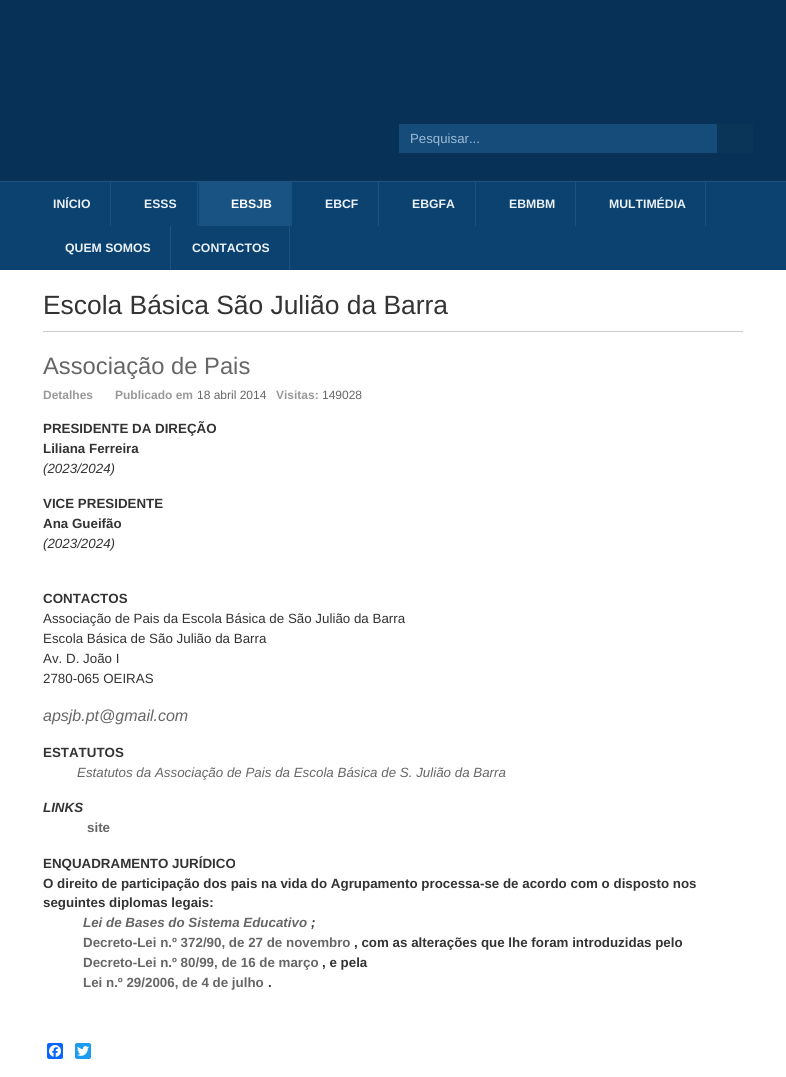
#include <cairo/cairo.h>
#include <math.h>
#include <stddef.h>


static void rounded_rect(cairo_t *cr, double x, double y, double w, double h, double r) {
  cairo_new_sub_path(cr);
  cairo_arc(cr, x + w - r, y + h - r, r, 0, M_PI / 2);
  cairo_arc(cr, x + r, y + h - r, r, M_PI / 2, M_PI);
  cairo_arc(cr, x + r, y + r, r, M_PI, 1.5 * M_PI);
  cairo_arc(cr, x + w - r, y + r, r, 1.5 * M_PI, 2 * M_PI);
  cairo_close_path(cr);
}

static void draw_image(cairo_t *cr, const char *path, double x, double y, double w, double h) {
  cairo_surface_t *image = cairo_image_surface_create_from_png(path);
  cairo_save(cr);
  cairo_set_source_surface(cr, image, x, y);
  cairo_rectangle(cr, x, y, w, h);
  cairo_fill(cr);
  cairo_restore(cr);
  cairo_surface_destroy(image);
}

static void draw(cairo_t *cr) {
  cairo_set_source_rgb(cr, 1, 1, 1);
  cairo_paint(cr);
  cairo_set_source_rgb(cr, 8 / 255.0, 49 / 255.0, 88 / 255.0);
  cairo_rectangle(cr, 0, 0, 786, 180);
  cairo_fill(cr);
  cairo_set_source_rgb(cr, 9 / 255.0, 53 / 255.0, 90 / 255.0);
  cairo_rectangle(cr, 0, 180, 786, 1);
  cairo_fill(cr);
  cairo_set_source_rgb(cr, 21 / 255.0, 76 / 255.0, 122 / 255.0);
  cairo_rectangle(cr, 399, 124, 318, 29);
  cairo_fill(cr);
  cairo_set_source_rgb(cr, 10 / 255.0, 53 / 255.0, 89 / 255.0);
  cairo_rectangle(cr, 717, 124, 36, 29);
  cairo_fill(cr);
  cairo_set_source_rgb(cr, 12 / 255.0, 66 / 255.0, 111 / 255.0);
  cairo_rectangle(cr, 0, 182, 786, 88);
  cairo_fill(cr);
  cairo_set_source_rgb(cr, 31 / 255.0, 83 / 255.0, 126 / 255.0);
  cairo_rectangle(cr, 0, 181, 786, 1);
  cairo_fill(cr);
  cairo_set_source_rgb(cr, 27 / 255.0, 82 / 255.0, 128 / 255.0);
  cairo_rectangle(cr, 110, 182, 1, 44);
  cairo_fill(cr);
  cairo_rectangle(cr, 197, 182, 1, 44);
  cairo_fill(cr);
  cairo_set_source_rgb(cr, 25 / 255.0, 83 / 255.0, 131 / 255.0);
  cairo_rectangle(cr, 199, 182, 92, 44);
  cairo_fill(cr);
  cairo_set_source_rgb(cr, 27 / 255.0, 82 / 255.0, 128 / 255.0);
  cairo_rectangle(cr, 291, 182, 1, 44);
  cairo_fill(cr);
  cairo_rectangle(cr, 378, 182, 1, 44);
  cairo_fill(cr);
  cairo_rectangle(cr, 475, 182, 1, 44);
  cairo_fill(cr);
  cairo_rectangle(cr, 575, 182, 1, 44);
  cairo_fill(cr);
  cairo_rectangle(cr, 705, 182, 1, 44);
  cairo_fill(cr);
  cairo_rectangle(cr, 170, 226, 1, 44);
  cairo_fill(cr);
  cairo_rectangle(cr, 289, 226, 1, 44);
  cairo_fill(cr);
  cairo_set_source_rgb(cr, 204 / 255.0, 204 / 255.0, 204 / 255.0);
  cairo_rectangle(cr, 43, 331, 700, 1);
  cairo_fill(cr);
  cairo_set_source_rgb(cr, 8 / 255.0, 102 / 255.0, 1);
  rounded_rect(cr, 47, 1043, 16, 16, 2);
  cairo_fill(cr);
  draw_image(cr, "images/1.png", 49, 1045, 12, 12);
  cairo_set_source_rgb(cr, 29 / 255.0, 155 / 255.0, 240 / 255.0);
  rounded_rect(cr, 75, 1043, 16, 16, 2);
  cairo_fill(cr);
  draw_image(cr, "images/2.png", 77, 1046, 12, 10);
  cairo_select_font_face(cr, "Liberation Sans", CAIRO_FONT_SLANT_NORMAL, CAIRO_FONT_WEIGHT_NORMAL);
  cairo_set_font_size(cr, 13.25);
  cairo_set_source_rgb(cr, 157 / 255.0, 187 / 255.0, 213 / 255.0);
  cairo_move_to(cr, 410, 143);
  cairo_show_text(cr, "Pesquisar...");
  cairo_select_font_face(cr, "Liberation Sans", CAIRO_FONT_SLANT_NORMAL, CAIRO_FONT_WEIGHT_BOLD);
  cairo_set_font_size(cr, 12.25);
  cairo_set_source_rgb(cr, 234 / 255.0, 241 / 255.0, 247 / 255.0);
  cairo_move_to(cr, 53, 208);
  cairo_show_text(cr, "INÍCIO");
  cairo_move_to(cr, 144, 208);
  cairo_show_text(cr, "ESSS");
  cairo_set_source_rgb(cr, 1, 1, 1);
  cairo_move_to(cr, 231, 208);
  cairo_show_text(cr, "EBSJB");
  cairo_set_source_rgb(cr, 234 / 255.0, 241 / 255.0, 247 / 255.0);
  cairo_move_to(cr, 325, 208);
  cairo_show_text(cr, "EBCF");
  cairo_move_to(cr, 412, 208);
  cairo_show_text(cr, "EBGFA");
  cairo_move_to(cr, 509, 208);
  cairo_show_text(cr, "EBMBM");
  cairo_move_to(cr, 609, 208);
  cairo_show_text(cr, "MULTIMÉDIA");
  cairo_move_to(cr, 65, 252);
  cairo_show_text(cr, "QUEM SOMOS");
  cairo_move_to(cr, 192, 252);
  cairo_show_text(cr, "CONTACTOS");
  cairo_select_font_face(cr, "Liberation Sans", CAIRO_FONT_SLANT_NORMAL, CAIRO_FONT_WEIGHT_NORMAL);
  cairo_set_font_size(cr, 26.4);
  cairo_set_source_rgb(cr, 51 / 255.0, 51 / 255.0, 51 / 255.0);
  cairo_move_to(cr, 43, 314);
  cairo_show_text(cr, "Escola Básica São Julião da Barra");
  cairo_set_font_size(cr, 23.75);
  cairo_set_source_rgb(cr, 102 / 255.0, 102 / 255.0, 102 / 255.0);
  cairo_move_to(cr, 43, 374);
  cairo_show_text(cr, "Associação de Pais");
  cairo_select_font_face(cr, "Liberation Sans", CAIRO_FONT_SLANT_NORMAL, CAIRO_FONT_WEIGHT_BOLD);
  cairo_set_font_size(cr, 12);
  cairo_set_source_rgb(cr, 153 / 255.0, 153 / 255.0, 153 / 255.0);
  cairo_move_to(cr, 43, 399);
  cairo_show_text(cr, "Detalhes");
  cairo_move_to(cr, 115, 399);
  cairo_show_text(cr, "Publicado em");
  cairo_select_font_face(cr, "Liberation Sans", CAIRO_FONT_SLANT_NORMAL, CAIRO_FONT_WEIGHT_NORMAL);
  cairo_set_source_rgb(cr, 102 / 255.0, 102 / 255.0, 102 / 255.0);
  cairo_move_to(cr, 197, 399);
  cairo_show_text(cr, "18 abril 2014");
  cairo_select_font_face(cr, "Liberation Sans", CAIRO_FONT_SLANT_NORMAL, CAIRO_FONT_WEIGHT_BOLD);
  cairo_set_source_rgb(cr, 153 / 255.0, 153 / 255.0, 153 / 255.0);
  cairo_move_to(cr, 276, 399);
  cairo_show_text(cr, "Visitas:");
  cairo_select_font_face(cr, "Liberation Sans", CAIRO_FONT_SLANT_NORMAL, CAIRO_FONT_WEIGHT_NORMAL);
  cairo_set_source_rgb(cr, 102 / 255.0, 102 / 255.0, 102 / 255.0);
  cairo_move_to(cr, 322, 399);
  cairo_show_text(cr, "149028");
  cairo_select_font_face(cr, "Liberation Sans", CAIRO_FONT_SLANT_NORMAL, CAIRO_FONT_WEIGHT_BOLD);
  cairo_set_font_size(cr, 13.35);
  cairo_set_source_rgb(cr, 51 / 255.0, 51 / 255.0, 51 / 255.0);
  cairo_move_to(cr, 43, 433);
  cairo_show_text(cr, "PRESIDENTE DA DIREÇÃO");
  cairo_move_to(cr, 43, 453);
  cairo_show_text(cr, "Liliana Ferreira");
  cairo_select_font_face(cr, "Liberation Sans", CAIRO_FONT_SLANT_ITALIC, CAIRO_FONT_WEIGHT_NORMAL);
  cairo_move_to(cr, 43, 473);
  cairo_show_text(cr, "(2023/2024)");
  cairo_select_font_face(cr, "Liberation Sans", CAIRO_FONT_SLANT_NORMAL, CAIRO_FONT_WEIGHT_BOLD);
  cairo_move_to(cr, 43, 508);
  cairo_show_text(cr, "VICE PRESIDENTE");
  cairo_move_to(cr, 43, 528);
  cairo_show_text(cr, "Ana Gueifão");
  cairo_select_font_face(cr, "Liberation Sans", CAIRO_FONT_SLANT_ITALIC, CAIRO_FONT_WEIGHT_NORMAL);
  cairo_move_to(cr, 43, 548);
  cairo_show_text(cr, "(2023/2024)");
  cairo_select_font_face(cr, "Liberation Sans", CAIRO_FONT_SLANT_NORMAL, CAIRO_FONT_WEIGHT_BOLD);
  cairo_move_to(cr, 43, 603);
  cairo_show_text(cr, "CONTACTOS");
  cairo_select_font_face(cr, "Liberation Sans", CAIRO_FONT_SLANT_NORMAL, CAIRO_FONT_WEIGHT_NORMAL);
  cairo_move_to(cr, 43, 623);
  cairo_show_text(cr, "Associação de Pais da Escola Básica de São Julião da Barra");
  cairo_move_to(cr, 43, 643);
  cairo_show_text(cr, "Escola Básica de São Julião da Barra");
  cairo_move_to(cr, 43, 663);
  cairo_show_text(cr, "Av. D. João I");
  cairo_move_to(cr, 43, 683);
  cairo_show_text(cr, "2780-065 OEIRAS");
  cairo_select_font_face(cr, "Liberation Sans", CAIRO_FONT_SLANT_ITALIC, CAIRO_FONT_WEIGHT_NORMAL);
  cairo_set_font_size(cr, 16);
  cairo_set_source_rgb(cr, 102 / 255.0, 102 / 255.0, 102 / 255.0);
  cairo_move_to(cr, 43, 721);
  cairo_show_text(cr, "apsjb.pt@gmail.com");
  cairo_select_font_face(cr, "Liberation Sans", CAIRO_FONT_SLANT_NORMAL, CAIRO_FONT_WEIGHT_BOLD);
  cairo_set_font_size(cr, 13.35);
  cairo_set_source_rgb(cr, 51 / 255.0, 51 / 255.0, 51 / 255.0);
  cairo_move_to(cr, 43, 757);
  cairo_show_text(cr, "ESTATUTOS");
  cairo_select_font_face(cr, "Liberation Sans", CAIRO_FONT_SLANT_ITALIC, CAIRO_FONT_WEIGHT_NORMAL);
  cairo_set_source_rgb(cr, 102 / 255.0, 102 / 255.0, 102 / 255.0);
  cairo_move_to(cr, 77, 777);
  cairo_show_text(cr, "Estatutos da Associação de Pais da Escola Básica de S. Julião da Barra");
  cairo_select_font_face(cr, "Liberation Sans", CAIRO_FONT_SLANT_ITALIC, CAIRO_FONT_WEIGHT_BOLD);
  cairo_set_source_rgb(cr, 51 / 255.0, 51 / 255.0, 51 / 255.0);
  cairo_move_to(cr, 43, 812);
  cairo_show_text(cr, "LINKS");
  cairo_select_font_face(cr, "Liberation Sans", CAIRO_FONT_SLANT_NORMAL, CAIRO_FONT_WEIGHT_BOLD);
  cairo_set_source_rgb(cr, 102 / 255.0, 102 / 255.0, 102 / 255.0);
  cairo_move_to(cr, 87, 832);
  cairo_show_text(cr, "site");
  cairo_set_source_rgb(cr, 51 / 255.0, 51 / 255.0, 51 / 255.0);
  cairo_move_to(cr, 43, 868);
  cairo_show_text(cr, "ENQUADRAMENTO JURÍDICO");
  cairo_move_to(cr, 43, 888);
  cairo_show_text(cr, "O direito de participação dos pais na vida do Agrupamento processa-se de acordo com o disposto nos");
  cairo_move_to(cr, 43, 907);
  cairo_show_text(cr, "seguintes diplomas legais:");
  cairo_select_font_face(cr, "Liberation Sans", CAIRO_FONT_SLANT_ITALIC, CAIRO_FONT_WEIGHT_BOLD);
  cairo_set_source_rgb(cr, 102 / 255.0, 102 / 255.0, 102 / 255.0);
  cairo_move_to(cr, 83, 927);
  cairo_show_text(cr, "Lei de Bases do Sistema Educativo");
  cairo_set_source_rgb(cr, 51 / 255.0, 51 / 255.0, 51 / 255.0);
  cairo_move_to(cr, 311, 927);
  cairo_show_text(cr, ";");
  cairo_select_font_face(cr, "Liberation Sans", CAIRO_FONT_SLANT_NORMAL, CAIRO_FONT_WEIGHT_BOLD);
  cairo_set_source_rgb(cr, 102 / 255.0, 102 / 255.0, 102 / 255.0);
  cairo_move_to(cr, 83, 947);
  cairo_show_text(cr, "Decreto-Lei n.º 372/90, de 27 de novembro");
  cairo_set_source_rgb(cr, 51 / 255.0, 51 / 255.0, 51 / 255.0);
  cairo_move_to(cr, 354, 947);
  cairo_show_text(cr, ", com as alterações que lhe foram introduzidas pelo");
  cairo_set_source_rgb(cr, 102 / 255.0, 102 / 255.0, 102 / 255.0);
  cairo_move_to(cr, 83, 967);
  cairo_show_text(cr, "Decreto-Lei n.º 80/99, de 16 de março");
  cairo_set_source_rgb(cr, 51 / 255.0, 51 / 255.0, 51 / 255.0);
  cairo_move_to(cr, 322, 967);
  cairo_show_text(cr, ", e pela");
  cairo_set_source_rgb(cr, 102 / 255.0, 102 / 255.0, 102 / 255.0);
  cairo_move_to(cr, 83, 987);
  cairo_show_text(cr, "Lei n.º 29/2006, de 4 de julho");
  cairo_set_source_rgb(cr, 51 / 255.0, 51 / 255.0, 51 / 255.0);
  cairo_move_to(cr, 268, 987);
  cairo_show_text(cr, ".");
}

int main(void) {
  cairo_surface_t *surface = cairo_image_surface_create(CAIRO_FORMAT_RGB24, 786, 1077);
  cairo_t *cr = cairo_create(surface);
  cairo_font_options_t *options = cairo_font_options_create();
  cairo_font_options_set_hint_metrics(options, CAIRO_HINT_METRICS_OFF);
  cairo_font_options_set_hint_style(options, CAIRO_HINT_STYLE_NONE);
  cairo_set_font_options(cr, options);
  cairo_set_miter_limit(cr, 4);
  draw(cr);
  cairo_surface_write_to_png(surface, "out.png");
  cairo_font_options_destroy(options);
  cairo_destroy(cr);
  cairo_surface_destroy(surface);
  return 0;
}
